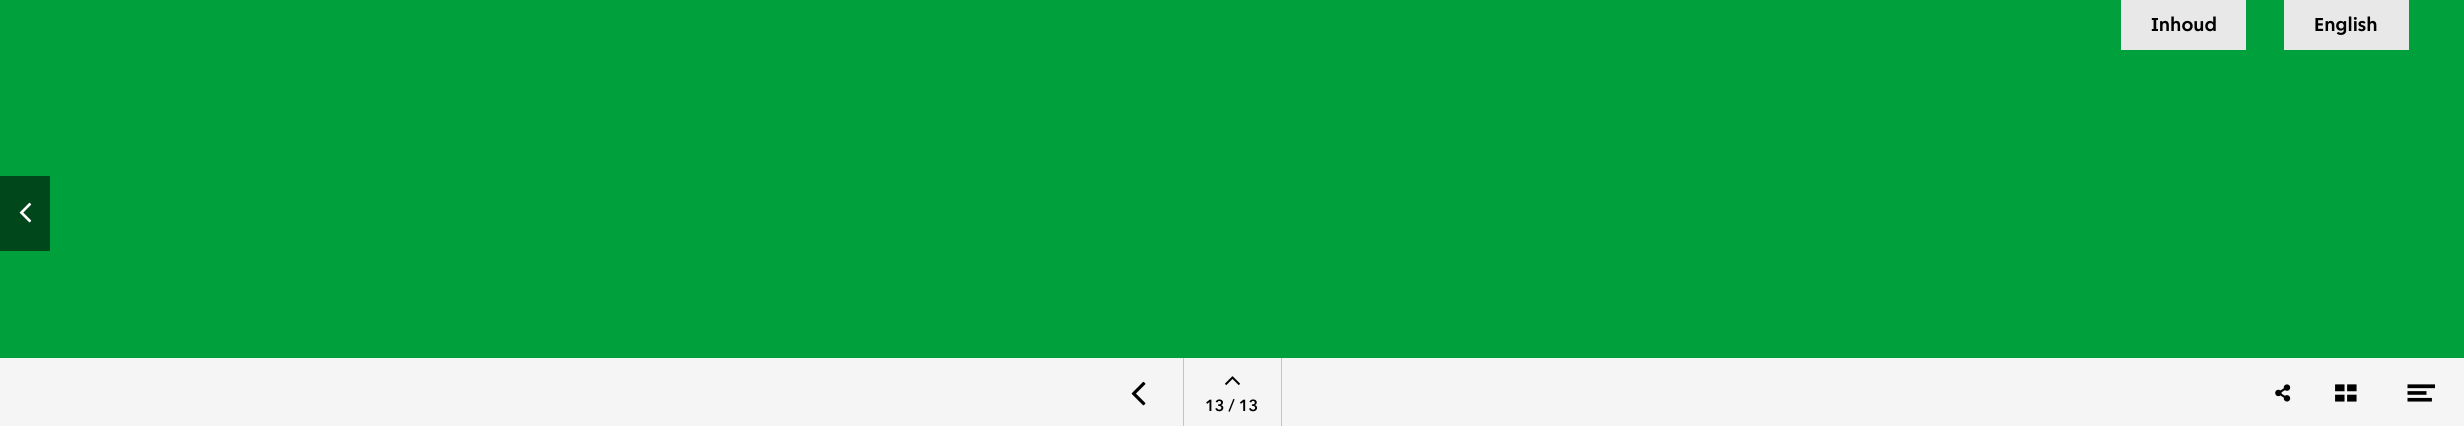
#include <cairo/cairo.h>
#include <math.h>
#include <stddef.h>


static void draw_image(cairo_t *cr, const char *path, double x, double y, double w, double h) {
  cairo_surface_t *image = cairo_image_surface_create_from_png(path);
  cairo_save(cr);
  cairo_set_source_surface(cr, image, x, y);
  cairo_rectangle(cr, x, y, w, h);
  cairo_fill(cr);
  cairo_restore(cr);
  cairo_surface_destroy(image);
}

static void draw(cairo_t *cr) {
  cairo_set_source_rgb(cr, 0, 160 / 255.0, 60 / 255.0);
  cairo_paint(cr);
  cairo_set_source_rgb(cr, 232 / 255.0, 232 / 255.0, 232 / 255.0);
  cairo_rectangle(cr, 2121, 0, 125, 50);
  cairo_fill(cr);
  cairo_rectangle(cr, 2284, 0, 125, 50);
  cairo_fill(cr);
  cairo_set_source_rgb(cr, 0, 72 / 255.0, 27 / 255.0);
  cairo_rectangle(cr, 0, 176, 50, 75);
  cairo_fill(cr);
  draw_image(cr, "images/1.png", 19, 202, 13, 21);
  cairo_set_source_rgb(cr, 245 / 255.0, 245 / 255.0, 245 / 255.0);
  cairo_rectangle(cr, 0, 358, 2464, 68);
  cairo_fill(cr);
  draw_image(cr, "images/2.png", 2275, 384, 16, 18);
  draw_image(cr, "images/3.png", 2335, 384, 22, 18);
  draw_image(cr, "images/4.png", 2407, 384, 28, 18);
  draw_image(cr, "images/5.png", 1131, 381, 15, 25);
  cairo_set_source_rgb(cr, 196 / 255.0, 196 / 255.0, 196 / 255.0);
  cairo_rectangle(cr, 1183, 358, 1, 68);
  cairo_fill(cr);
  draw_image(cr, "images/6.png", 1225, 376, 15, 9);
  cairo_rectangle(cr, 1281, 358, 1, 68);
  cairo_fill(cr);
  cairo_select_font_face(cr, "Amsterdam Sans", CAIRO_FONT_SLANT_NORMAL, CAIRO_FONT_WEIGHT_BOLD);
  cairo_set_font_size(cr, 20);
  cairo_set_source_rgb(cr, 0, 0, 0);
  cairo_move_to(cr, 2151, 31);
  cairo_show_text(cr, "Inhoud");
  cairo_move_to(cr, 2314, 31);
  cairo_show_text(cr, "English");
  cairo_select_font_face(cr, "Avenir Next SemiBold", CAIRO_FONT_SLANT_NORMAL, CAIRO_FONT_WEIGHT_NORMAL);
  cairo_set_font_size(cr, 16);
  cairo_move_to(cr, 1205, 411);
  cairo_show_text(cr, "13 / 13");
}

int main(void) {
  cairo_surface_t *surface = cairo_image_surface_create(CAIRO_FORMAT_RGB24, 2464, 426);
  cairo_t *cr = cairo_create(surface);
  cairo_font_options_t *options = cairo_font_options_create();
  cairo_font_options_set_hint_metrics(options, CAIRO_HINT_METRICS_OFF);
  cairo_font_options_set_hint_style(options, CAIRO_HINT_STYLE_NONE);
  cairo_set_font_options(cr, options);
  cairo_set_miter_limit(cr, 4);
  draw(cr);
  cairo_surface_write_to_png(surface, "out.png");
  cairo_font_options_destroy(options);
  cairo_destroy(cr);
  cairo_surface_destroy(surface);
  return 0;
}
